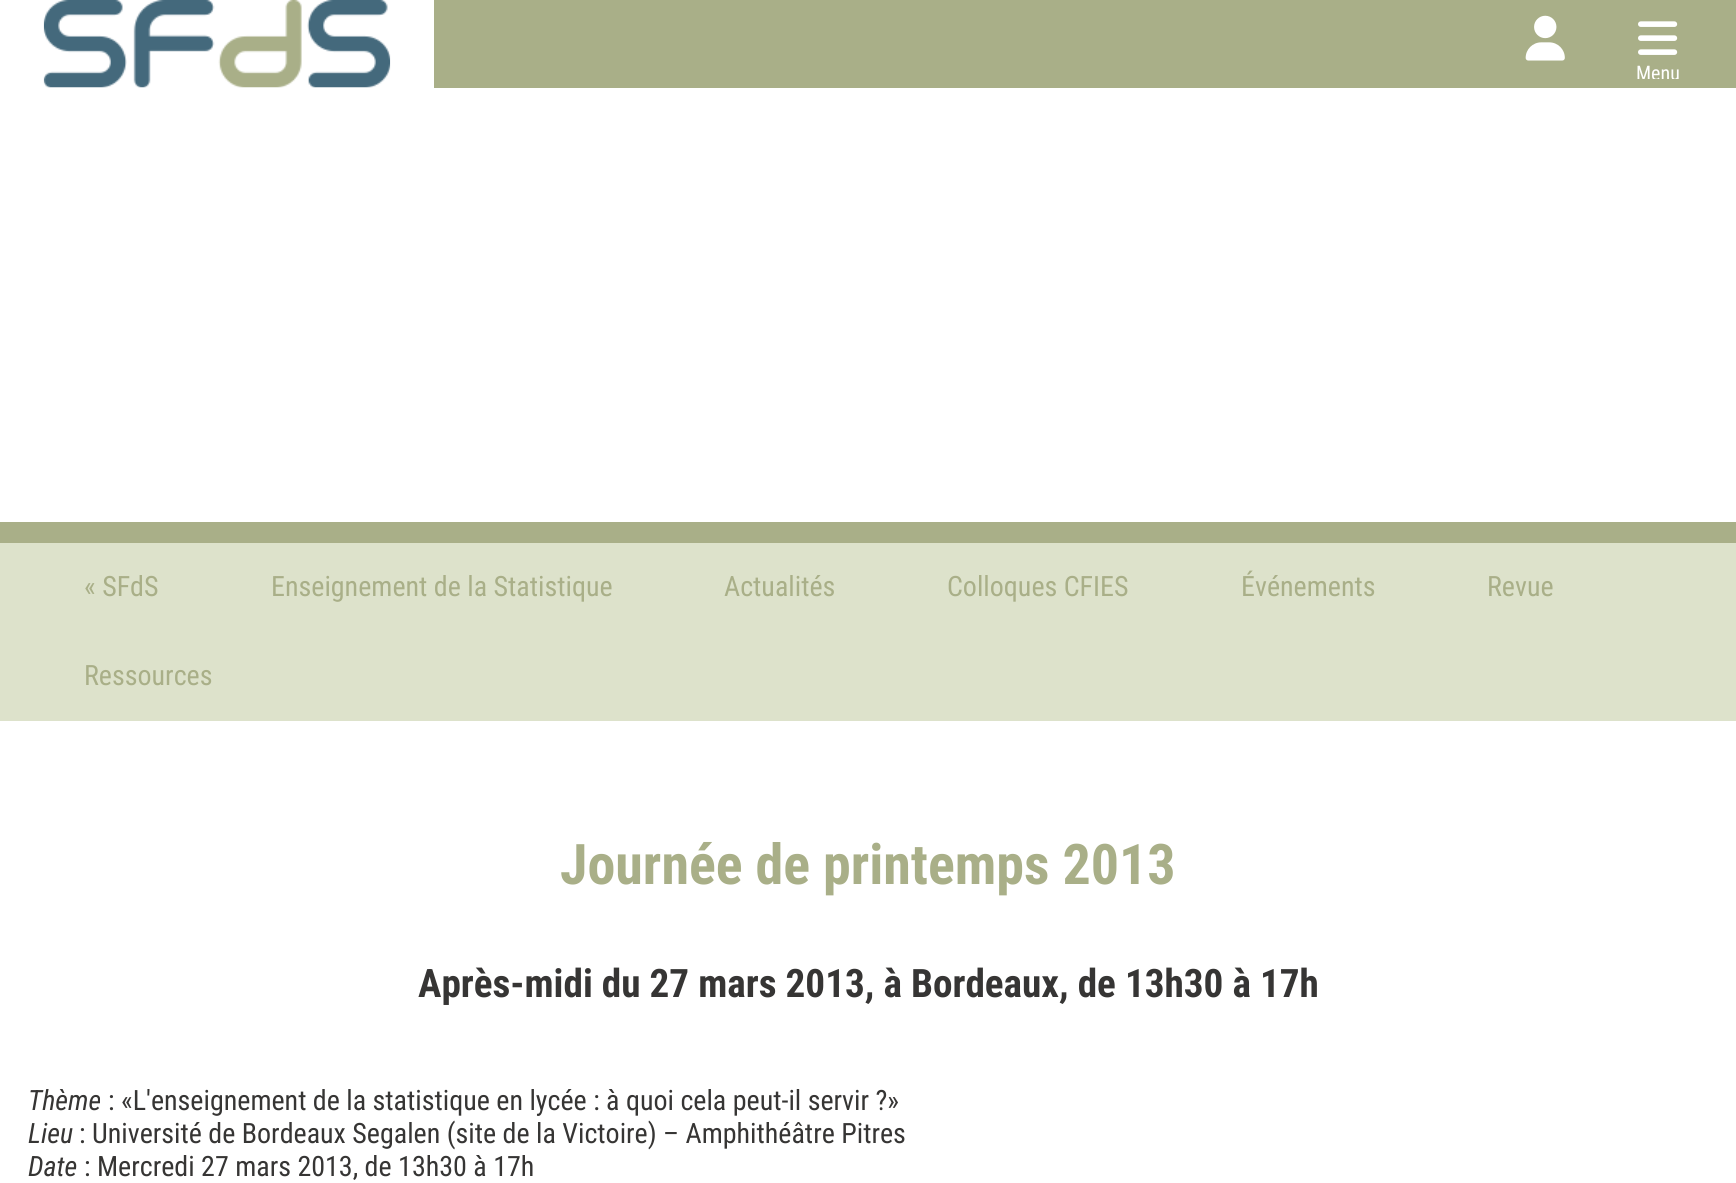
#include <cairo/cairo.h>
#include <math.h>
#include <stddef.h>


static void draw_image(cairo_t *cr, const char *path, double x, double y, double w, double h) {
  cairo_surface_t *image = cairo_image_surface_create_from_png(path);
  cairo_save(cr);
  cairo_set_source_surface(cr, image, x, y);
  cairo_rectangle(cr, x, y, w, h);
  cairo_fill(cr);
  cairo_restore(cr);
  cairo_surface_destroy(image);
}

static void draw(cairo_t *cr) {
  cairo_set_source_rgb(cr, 1, 1, 1);
  cairo_paint(cr);
  draw_image(cr, "images/1.png", 43, 0, 348, 88);
  cairo_set_source_rgb(cr, 169 / 255.0, 175 / 255.0, 136 / 255.0);
  cairo_rectangle(cr, 434, 0, 1302, 88);
  cairo_fill(cr);
  draw_image(cr, "images/2.png", 1525, 15, 40, 46);
  draw_image(cr, "images/3.png", 1638, 21, 40, 34);
  cairo_set_source_rgb(cr, 221 / 255.0, 226 / 255.0, 203 / 255.0);
  cairo_rectangle(cr, 0, 543, 1736, 178);
  cairo_fill(cr);
  cairo_set_source_rgb(cr, 169 / 255.0, 175 / 255.0, 136 / 255.0);
  cairo_rectangle(cr, 0, 522, 1736, 21);
  cairo_fill(cr);
  cairo_save(cr);
  cairo_rectangle(cr, 1475, 0, 252, 79);
  cairo_clip(cr);
  cairo_select_font_face(cr, "Roboto Condensed", CAIRO_FONT_SLANT_NORMAL, CAIRO_FONT_WEIGHT_NORMAL);
  cairo_set_font_size(cr, 20);
  cairo_set_source_rgb(cr, 1, 1, 1);
  cairo_move_to(cr, 1636, 80);
  cairo_show_text(cr, "Menu");
  cairo_restore(cr);
  cairo_select_font_face(cr, "Roboto Condensed", CAIRO_FONT_SLANT_NORMAL, CAIRO_FONT_WEIGHT_NORMAL);
  cairo_set_font_size(cr, 28);
  cairo_move_to(cr, 84, 596);
  cairo_show_text(cr, "« SFdS");
  cairo_move_to(cr, 271, 596);
  cairo_show_text(cr, "Enseignement de la Statistique");
  cairo_move_to(cr, 724, 596);
  cairo_show_text(cr, "Actualités");
  cairo_move_to(cr, 947, 596);
  cairo_show_text(cr, "Colloques CFIES");
  cairo_move_to(cr, 1241, 596);
  cairo_show_text(cr, "Événements");
  cairo_move_to(cr, 1487, 596);
  cairo_show_text(cr, "Revue");
  cairo_move_to(cr, 84, 685);
  cairo_show_text(cr, "Ressources");
  cairo_select_font_face(cr, "Roboto Condensed", CAIRO_FONT_SLANT_NORMAL, CAIRO_FONT_WEIGHT_BOLD);
  cairo_set_font_size(cr, 56);
  cairo_move_to(cr, 560, 884);
  cairo_show_text(cr, "Journée de printemps 2013");
  cairo_set_font_size(cr, 39.2);
  cairo_set_source_rgb(cr, 54 / 255.0, 53 / 255.0, 52 / 255.0);
  cairo_move_to(cr, 418, 997);
  cairo_show_text(cr, "Après-midi du 27 mars 2013, à Bordeaux, de 13h30 à 17h");
  cairo_select_font_face(cr, "Roboto Condensed", CAIRO_FONT_SLANT_ITALIC, CAIRO_FONT_WEIGHT_NORMAL);
  cairo_set_font_size(cr, 28);
  cairo_move_to(cr, 28, 1110);
  cairo_show_text(cr, "Thème");
  cairo_select_font_face(cr, "Roboto Condensed", CAIRO_FONT_SLANT_NORMAL, CAIRO_FONT_WEIGHT_NORMAL);
  cairo_move_to(cr, 108, 1110);
  cairo_show_text(cr, ": «L'enseignement de la statistique en lycée : à quoi cela peut-il servir ?»");
  cairo_select_font_face(cr, "Roboto Condensed", CAIRO_FONT_SLANT_ITALIC, CAIRO_FONT_WEIGHT_NORMAL);
  cairo_move_to(cr, 28, 1143);
  cairo_show_text(cr, "Lieu");
  cairo_select_font_face(cr, "Roboto Condensed", CAIRO_FONT_SLANT_NORMAL, CAIRO_FONT_WEIGHT_NORMAL);
  cairo_move_to(cr, 79, 1143);
  cairo_show_text(cr, ": Université de Bordeaux Segalen (site de la Victoire) – Amphithéâtre Pitres");
  cairo_select_font_face(cr, "Roboto Condensed", CAIRO_FONT_SLANT_ITALIC, CAIRO_FONT_WEIGHT_NORMAL);
  cairo_move_to(cr, 28, 1176);
  cairo_show_text(cr, "Date");
  cairo_select_font_face(cr, "Roboto Condensed", CAIRO_FONT_SLANT_NORMAL, CAIRO_FONT_WEIGHT_NORMAL);
  cairo_move_to(cr, 84, 1176);
  cairo_show_text(cr, ": Mercredi 27 mars 2013, de 13h30 à 17h");
}

int main(void) {
  cairo_surface_t *surface = cairo_image_surface_create(CAIRO_FORMAT_RGB24, 1736, 1183);
  cairo_t *cr = cairo_create(surface);
  cairo_font_options_t *options = cairo_font_options_create();
  cairo_font_options_set_hint_metrics(options, CAIRO_HINT_METRICS_OFF);
  cairo_font_options_set_hint_style(options, CAIRO_HINT_STYLE_NONE);
  cairo_set_font_options(cr, options);
  cairo_set_miter_limit(cr, 4);
  draw(cr);
  cairo_surface_write_to_png(surface, "out.png");
  cairo_font_options_destroy(options);
  cairo_destroy(cr);
  cairo_surface_destroy(surface);
  return 0;
}
